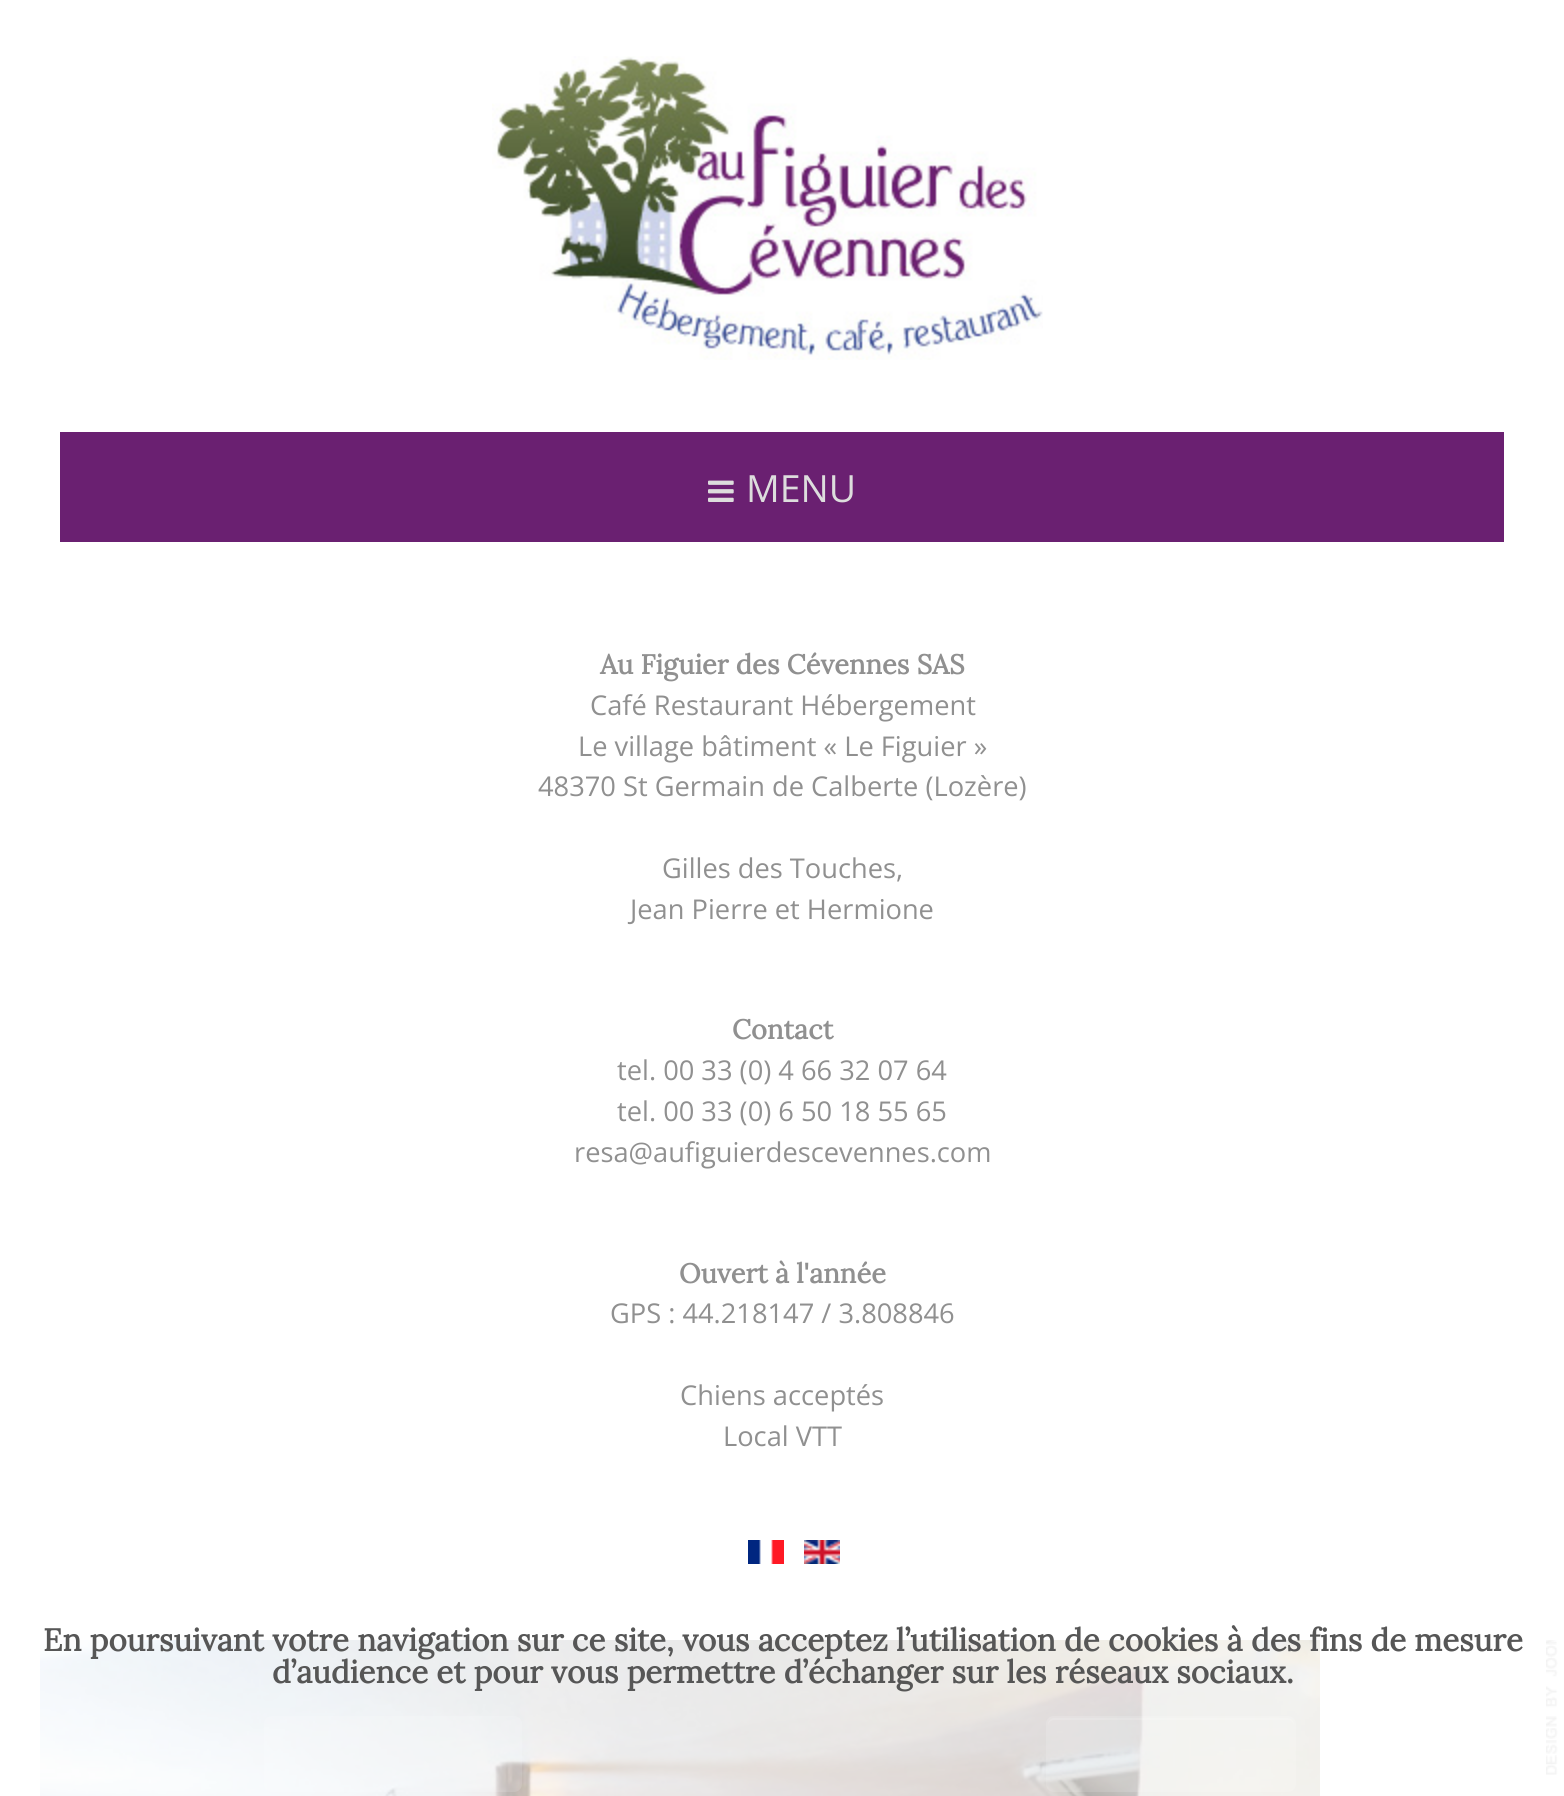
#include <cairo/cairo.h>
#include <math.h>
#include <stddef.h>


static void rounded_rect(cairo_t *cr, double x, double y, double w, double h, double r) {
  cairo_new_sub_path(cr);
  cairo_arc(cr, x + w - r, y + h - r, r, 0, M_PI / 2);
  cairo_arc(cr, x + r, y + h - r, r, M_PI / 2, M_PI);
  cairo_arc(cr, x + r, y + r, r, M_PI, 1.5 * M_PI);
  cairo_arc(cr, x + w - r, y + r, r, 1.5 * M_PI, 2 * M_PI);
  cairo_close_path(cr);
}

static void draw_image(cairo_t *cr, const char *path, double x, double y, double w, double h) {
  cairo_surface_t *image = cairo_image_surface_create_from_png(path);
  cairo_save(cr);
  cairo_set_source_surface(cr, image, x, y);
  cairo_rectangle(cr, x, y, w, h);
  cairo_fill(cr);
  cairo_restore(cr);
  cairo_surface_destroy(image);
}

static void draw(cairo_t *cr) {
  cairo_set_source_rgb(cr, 1, 1, 1);
  cairo_paint(cr);
  draw_image(cr, "images/1.png", 492, 56, 551, 304);
  cairo_set_source_rgb(cr, 106 / 255.0, 32 / 255.0, 113 / 255.0);
  cairo_rectangle(cr, 60, 432, 1444, 110);
  cairo_fill(cr);
  draw_image(cr, "images/2.png", 708, 480, 26, 22);
  draw_image(cr, "images/3.png", 748, 1540, 36, 24);
  draw_image(cr, "images/4.png", 804, 1540, 36, 24);
  draw_image(cr, "images/5.png", 40, 1640, 1280, 156);
  cairo_set_source_rgba(cr, 1, 1, 1, 0.13);
  rounded_rect(cr, 264, 1716, 258, 76, 8);
  cairo_fill(cr);
  rounded_rect(cr, 1046, 1716, 250, 76, 8);
  cairo_fill(cr);
  cairo_new_path(cr);
  cairo_move_to(cr, 1054, 1720);
  cairo_line_to(cr, 1288, 1720);
  cairo_curve_to(cr, 1291, 1720, 1294, 1723, 1294, 1726);
  cairo_line_to(cr, 1294, 1724);
  cairo_curve_to(cr, 1294, 1721, 1291, 1718, 1288, 1718);
  cairo_line_to(cr, 1054, 1718);
  cairo_curve_to(cr, 1051, 1718, 1048, 1721, 1048, 1724);
  cairo_line_to(cr, 1048, 1726);
  cairo_curve_to(cr, 1048, 1723, 1051, 1720, 1054, 1720);
  cairo_close_path(cr);
  cairo_fill(cr);
  draw_image(cr, "images/6.png", 1546, 1640, 12, 135);
  cairo_select_font_face(cr, "Open Sans", CAIRO_FONT_SLANT_NORMAL, CAIRO_FONT_WEIGHT_NORMAL);
  cairo_set_font_size(cr, 37.5);
  cairo_set_source_rgb(cr, 221 / 255.0, 221 / 255.0, 221 / 255.0);
  cairo_move_to(cr, 746, 502);
  cairo_show_text(cr, "MENU");
  cairo_select_font_face(cr, "Lora", CAIRO_FONT_SLANT_NORMAL, CAIRO_FONT_WEIGHT_BOLD);
  cairo_set_font_size(cr, 27.25);
  cairo_set_source_rgb(cr, 144 / 255.0, 144 / 255.0, 144 / 255.0);
  cairo_move_to(cr, 600, 674);
  cairo_show_text(cr, "Au Figuier des Cévennes SAS");
  cairo_select_font_face(cr, "Open Sans", CAIRO_FONT_SLANT_NORMAL, CAIRO_FONT_WEIGHT_NORMAL);
  cairo_move_to(cr, 590, 715);
  cairo_show_text(cr, "Café Restaurant Hébergement");
  cairo_move_to(cr, 578, 756);
  cairo_show_text(cr, "Le village bâtiment « Le Figuier »");
  cairo_move_to(cr, 538, 796);
  cairo_show_text(cr, "48370 St Germain de Calberte (Lozère)");
  cairo_move_to(cr, 662, 878);
  cairo_show_text(cr, "Gilles des Touches,");
  cairo_move_to(cr, 630, 919);
  cairo_show_text(cr, "Jean Pierre et Hermione");
  cairo_select_font_face(cr, "Lora", CAIRO_FONT_SLANT_NORMAL, CAIRO_FONT_WEIGHT_BOLD);
  cairo_move_to(cr, 732, 1039);
  cairo_show_text(cr, "Contact");
  cairo_select_font_face(cr, "Open Sans", CAIRO_FONT_SLANT_NORMAL, CAIRO_FONT_WEIGHT_NORMAL);
  cairo_move_to(cr, 617, 1080);
  cairo_show_text(cr, "tel. 00 33 (0) 4 66 32 07 64");
  cairo_move_to(cr, 617, 1121);
  cairo_show_text(cr, "tel. 00 33 (0) 6 50 18 55 65");
  cairo_move_to(cr, 574, 1162);
  cairo_show_text(cr, "resa@aufiguierdescevennes.com");
  cairo_select_font_face(cr, "Lora", CAIRO_FONT_SLANT_NORMAL, CAIRO_FONT_WEIGHT_BOLD);
  cairo_move_to(cr, 679, 1283);
  cairo_show_text(cr, "Ouvert à l'année");
  cairo_select_font_face(cr, "Open Sans", CAIRO_FONT_SLANT_NORMAL, CAIRO_FONT_WEIGHT_NORMAL);
  cairo_move_to(cr, 610, 1323);
  cairo_show_text(cr, "GPS : 44.218147 / 3.808846");
  cairo_move_to(cr, 680, 1405);
  cairo_show_text(cr, "Chiens acceptés");
  cairo_move_to(cr, 723, 1446);
  cairo_show_text(cr, "Local VTT");
  cairo_select_font_face(cr, "Lora", CAIRO_FONT_SLANT_NORMAL, CAIRO_FONT_WEIGHT_BOLD);
  cairo_set_font_size(cr, 31.3);
  cairo_set_source_rgb(cr, 86 / 255.0, 86 / 255.0, 86 / 255.0);
  cairo_move_to(cr, 43, 1651);
  cairo_show_text(cr, "En poursuivant votre navigation sur ce site, vous acceptez l’utilisation de cookies à des fins de mesure");
  cairo_move_to(cr, 272, 1683);
  cairo_show_text(cr, "d’audience et pour vous permettre d’échanger sur les réseaux sociaux.");
}

int main(void) {
  cairo_surface_t *surface = cairo_image_surface_create(CAIRO_FORMAT_RGB24, 1564, 1796);
  cairo_t *cr = cairo_create(surface);
  cairo_font_options_t *options = cairo_font_options_create();
  cairo_font_options_set_hint_metrics(options, CAIRO_HINT_METRICS_OFF);
  cairo_font_options_set_hint_style(options, CAIRO_HINT_STYLE_NONE);
  cairo_set_font_options(cr, options);
  cairo_set_miter_limit(cr, 4);
  draw(cr);
  cairo_surface_write_to_png(surface, "out.png");
  cairo_font_options_destroy(options);
  cairo_destroy(cr);
  cairo_surface_destroy(surface);
  return 0;
}
